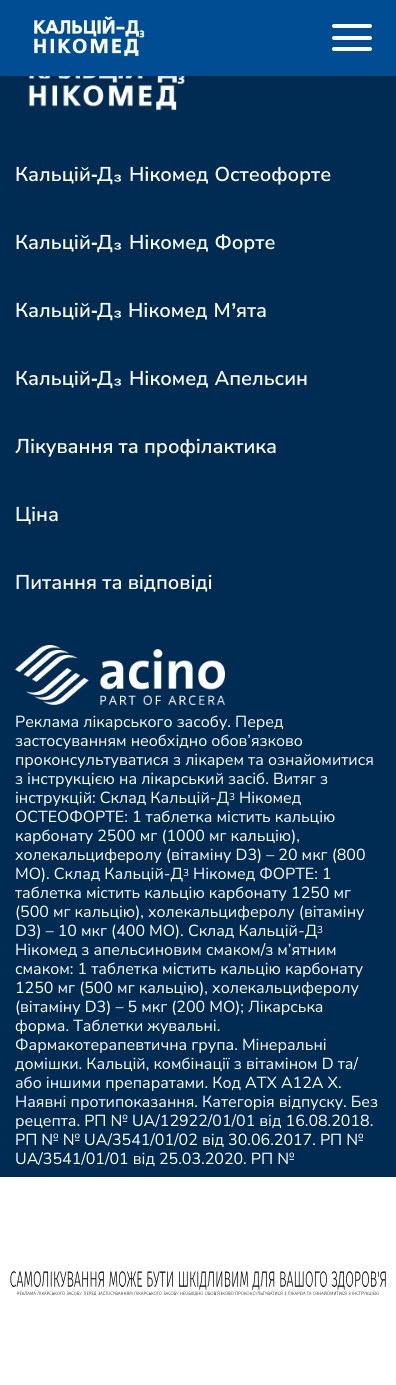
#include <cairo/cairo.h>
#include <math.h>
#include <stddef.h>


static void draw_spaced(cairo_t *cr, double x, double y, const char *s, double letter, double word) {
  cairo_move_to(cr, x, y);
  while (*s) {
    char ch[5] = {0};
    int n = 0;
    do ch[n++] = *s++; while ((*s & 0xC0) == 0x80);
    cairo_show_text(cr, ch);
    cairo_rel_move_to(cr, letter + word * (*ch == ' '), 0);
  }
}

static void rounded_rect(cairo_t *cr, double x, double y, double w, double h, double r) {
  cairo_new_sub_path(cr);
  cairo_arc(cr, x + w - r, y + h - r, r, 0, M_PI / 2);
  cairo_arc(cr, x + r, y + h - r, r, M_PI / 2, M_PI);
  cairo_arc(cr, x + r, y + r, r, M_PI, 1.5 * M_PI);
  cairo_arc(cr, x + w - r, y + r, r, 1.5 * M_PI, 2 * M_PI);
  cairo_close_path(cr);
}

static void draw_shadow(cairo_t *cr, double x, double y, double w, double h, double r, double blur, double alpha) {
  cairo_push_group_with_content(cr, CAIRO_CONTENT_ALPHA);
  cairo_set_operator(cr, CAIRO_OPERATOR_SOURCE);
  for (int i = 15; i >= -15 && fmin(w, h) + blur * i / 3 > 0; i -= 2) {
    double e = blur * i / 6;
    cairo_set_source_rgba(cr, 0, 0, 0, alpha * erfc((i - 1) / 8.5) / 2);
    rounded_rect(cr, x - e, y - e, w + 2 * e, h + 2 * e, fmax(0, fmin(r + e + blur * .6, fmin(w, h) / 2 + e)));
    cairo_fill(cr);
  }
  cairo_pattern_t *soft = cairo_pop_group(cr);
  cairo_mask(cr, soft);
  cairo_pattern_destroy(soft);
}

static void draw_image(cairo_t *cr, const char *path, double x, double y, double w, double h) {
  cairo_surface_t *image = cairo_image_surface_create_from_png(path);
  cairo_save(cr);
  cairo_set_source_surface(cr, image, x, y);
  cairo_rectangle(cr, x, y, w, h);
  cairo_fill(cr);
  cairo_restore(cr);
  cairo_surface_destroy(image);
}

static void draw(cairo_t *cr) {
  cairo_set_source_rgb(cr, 0, 43 / 255.0, 83 / 255.0);
  cairo_paint(cr);
  draw_image(cr, "images/2.png", 28, 76, 157, 35);
  cairo_set_source_rgb(cr, 0, 0, 0);
  draw_shadow(cr, 0, 2, 396, 76, 0, 2, 0.15);
  cairo_set_source_rgb(cr, 0, 77 / 255.0, 148 / 255.0);
  cairo_rectangle(cr, 0, 0, 396, 76);
  cairo_fill(cr);
  draw_image(cr, "images/1.png", 34, 16, 111, 41);
  cairo_set_source_rgb(cr, 1, 1, 1);
  rounded_rect(cr, 332, 24, 40, 4, 2);
  cairo_fill(cr);
  rounded_rect(cr, 332, 36, 40, 4, 2);
  cairo_fill(cr);
  rounded_rect(cr, 332, 47, 40, 4, 2);
  cairo_fill(cr);
  draw_image(cr, "images/3.png", 15, 645, 210, 60);
  cairo_rectangle(cr, 0, 1177, 396, 208);
  cairo_fill(cr);
  draw_image(cr, "images/4.png", 10, 1271, 376, 25);
  cairo_select_font_face(cr, "Nunito Sans SemiBold", CAIRO_FONT_SLANT_NORMAL, CAIRO_FONT_WEIGHT_NORMAL);
  cairo_set_font_size(cr, 20);
  cairo_move_to(cr, 15, 181);
  cairo_show_text(cr, "Кальцій");
  cairo_select_font_face(cr, "Liberation Sans", CAIRO_FONT_SLANT_NORMAL, CAIRO_FONT_WEIGHT_BOLD);
  cairo_move_to(cr, 91, 181);
  cairo_show_text(cr, "-");
  cairo_select_font_face(cr, "Nunito Sans SemiBold", CAIRO_FONT_SLANT_NORMAL, CAIRO_FONT_WEIGHT_NORMAL);
  cairo_move_to(cr, 97, 181);
  cairo_show_text(cr, "Д");
  cairo_select_font_face(cr, "Liberation Sans", CAIRO_FONT_SLANT_NORMAL, CAIRO_FONT_WEIGHT_BOLD);
  cairo_move_to(cr, 113, 181);
  cairo_show_text(cr, "₃");
  cairo_select_font_face(cr, "Nunito Sans SemiBold", CAIRO_FONT_SLANT_NORMAL, CAIRO_FONT_WEIGHT_NORMAL);
  draw_spaced(cr, 129, 181, "Нікомед Остеофорте", 0, 1);
  cairo_move_to(cr, 15, 249);
  cairo_show_text(cr, "Кальцій");
  cairo_select_font_face(cr, "Liberation Sans", CAIRO_FONT_SLANT_NORMAL, CAIRO_FONT_WEIGHT_BOLD);
  cairo_move_to(cr, 91, 249);
  cairo_show_text(cr, "-");
  cairo_select_font_face(cr, "Nunito Sans SemiBold", CAIRO_FONT_SLANT_NORMAL, CAIRO_FONT_WEIGHT_NORMAL);
  cairo_move_to(cr, 97, 249);
  cairo_show_text(cr, "Д");
  cairo_select_font_face(cr, "Liberation Sans", CAIRO_FONT_SLANT_NORMAL, CAIRO_FONT_WEIGHT_BOLD);
  cairo_move_to(cr, 113, 249);
  cairo_show_text(cr, "₃");
  cairo_select_font_face(cr, "Nunito Sans SemiBold", CAIRO_FONT_SLANT_NORMAL, CAIRO_FONT_WEIGHT_NORMAL);
  draw_spaced(cr, 129, 249, "Нікомед Форте", 0, 1);
  cairo_move_to(cr, 15, 317);
  cairo_show_text(cr, "Кальцій");
  cairo_move_to(cr, 97, 317);
  cairo_show_text(cr, "Д");
  draw_spaced(cr, 128, 317, "Нікомед М", 0, 1);
  cairo_select_font_face(cr, "Liberation Sans", CAIRO_FONT_SLANT_NORMAL, CAIRO_FONT_WEIGHT_BOLD);
  cairo_move_to(cr, 231, 317);
  cairo_show_text(cr, "’");
  cairo_move_to(cr, 91, 317);
  cairo_show_text(cr, "-");
  cairo_move_to(cr, 113, 317);
  cairo_show_text(cr, "₃");
  cairo_select_font_face(cr, "Nunito Sans SemiBold", CAIRO_FONT_SLANT_NORMAL, CAIRO_FONT_WEIGHT_NORMAL);
  cairo_move_to(cr, 236, 317);
  cairo_show_text(cr, "ята");
  cairo_move_to(cr, 15, 385);
  cairo_show_text(cr, "Кальцій");
  cairo_select_font_face(cr, "Liberation Sans", CAIRO_FONT_SLANT_NORMAL, CAIRO_FONT_WEIGHT_BOLD);
  cairo_move_to(cr, 91, 385);
  cairo_show_text(cr, "-");
  cairo_select_font_face(cr, "Nunito Sans SemiBold", CAIRO_FONT_SLANT_NORMAL, CAIRO_FONT_WEIGHT_NORMAL);
  cairo_move_to(cr, 97, 385);
  cairo_show_text(cr, "Д");
  cairo_select_font_face(cr, "Liberation Sans", CAIRO_FONT_SLANT_NORMAL, CAIRO_FONT_WEIGHT_BOLD);
  cairo_move_to(cr, 113, 385);
  cairo_show_text(cr, "₃");
  cairo_select_font_face(cr, "Nunito Sans SemiBold", CAIRO_FONT_SLANT_NORMAL, CAIRO_FONT_WEIGHT_NORMAL);
  draw_spaced(cr, 129, 385, "Нікомед Апельсин", 0, 1);
  cairo_move_to(cr, 15, 453);
  cairo_show_text(cr, "Лікування та профілактика");
  cairo_move_to(cr, 15, 521);
  cairo_show_text(cr, "Ціна");
  cairo_move_to(cr, 15, 589);
  cairo_show_text(cr, "Питання та відповіді");
  cairo_select_font_face(cr, "Nunito Sans", CAIRO_FONT_SLANT_NORMAL, CAIRO_FONT_WEIGHT_NORMAL);
  cairo_set_font_size(cr, 16);
  cairo_move_to(cr, 15, 727);
  cairo_show_text(cr, "Реклама лікарського засобу. Перед");
  cairo_move_to(cr, 15, 746);
  cairo_show_text(cr, "застосуванням необхідно обов’язково");
  cairo_move_to(cr, 15, 765);
  cairo_show_text(cr, "проконсультуватися з лікарем та ознайомитися");
  cairo_move_to(cr, 15, 784);
  cairo_show_text(cr, "з інструкцією на лікарський засіб. Витяг з");
  cairo_move_to(cr, 15, 803);
  cairo_show_text(cr, "інструкцій: Склад Кальцій-Д");
  cairo_set_font_size(cr, 10);
  cairo_move_to(cr, 229, 800);
  cairo_show_text(cr, "3");
  cairo_set_font_size(cr, 16);
  cairo_move_to(cr, 239, 803);
  cairo_show_text(cr, "Нікомед");
  cairo_move_to(cr, 15, 822);
  cairo_show_text(cr, "ОСТЕОФОРТЕ: 1 таблетка містить кальцію");
  cairo_move_to(cr, 15, 841);
  cairo_show_text(cr, "карбонату 2500 мг (1000 мг кальцію),");
  cairo_move_to(cr, 15, 860);
  cairo_show_text(cr, "холекальциферолу (вітаміну D3) – 20 мкг (800");
  cairo_move_to(cr, 15, 879);
  cairo_show_text(cr, "МО). Склад Кальцій-Д");
  cairo_set_font_size(cr, 10);
  cairo_move_to(cr, 183, 876);
  cairo_show_text(cr, "3");
  cairo_set_font_size(cr, 16);
  cairo_move_to(cr, 193, 879);
  cairo_show_text(cr, "Нікомед ФОРТЕ: 1");
  cairo_move_to(cr, 15, 898);
  cairo_show_text(cr, "таблетка містить кальцію карбонату 1250 мг");
  cairo_move_to(cr, 15, 917);
  cairo_show_text(cr, "(500 мг кальцію), холекальциферолу (вітаміну");
  cairo_move_to(cr, 15, 936);
  cairo_show_text(cr, "D3) – 10 мкг (400 МО). Склад Кальцій-Д");
  cairo_set_font_size(cr, 10);
  cairo_move_to(cr, 317, 933);
  cairo_show_text(cr, "3");
  cairo_set_font_size(cr, 16);
  cairo_move_to(cr, 15, 955);
  cairo_show_text(cr, "Нікомед з апельсиновим смаком/з м’ятним");
  cairo_move_to(cr, 15, 974);
  cairo_show_text(cr, "смаком: 1 таблетка містить кальцію карбонату");
  cairo_move_to(cr, 15, 993);
  cairo_show_text(cr, "1250 мг (500 мг кальцію), холекальциферолу");
  cairo_move_to(cr, 15, 1012);
  cairo_show_text(cr, "(вітаміну D3) – 5 мкг (200 МО); Лікарська");
  cairo_move_to(cr, 15, 1031);
  cairo_show_text(cr, "форма. Таблетки жувальні.");
  cairo_move_to(cr, 15, 1050);
  cairo_show_text(cr, "Фармакотерапевтична група. Мінеральні");
  cairo_move_to(cr, 15, 1069);
  cairo_show_text(cr, "домішки. Кальцій, комбінації з вітаміном D та/");
  cairo_move_to(cr, 15, 1088);
  cairo_show_text(cr, "або іншими препаратами. Код АТХ А12А Х.");
  cairo_move_to(cr, 15, 1107);
  cairo_show_text(cr, "Наявні протипоказання. Категорія відпуску. Без");
  cairo_move_to(cr, 15, 1126);
  cairo_show_text(cr, "рецепта. РП № UA/12922/01/01 від 16.08.2018.");
  cairo_move_to(cr, 15, 1145);
  cairo_show_text(cr, "РП № № UA/3541/01/02 від 30.06.2017. РП №");
  cairo_move_to(cr, 15, 1164);
  cairo_show_text(cr, "UA/3541/01/01 від 25.03.2020. РП №");
}

int main(void) {
  cairo_surface_t *surface = cairo_image_surface_create(CAIRO_FORMAT_RGB24, 396, 1385);
  cairo_t *cr = cairo_create(surface);
  cairo_font_options_t *options = cairo_font_options_create();
  cairo_font_options_set_hint_metrics(options, CAIRO_HINT_METRICS_OFF);
  cairo_font_options_set_hint_style(options, CAIRO_HINT_STYLE_NONE);
  cairo_set_font_options(cr, options);
  cairo_set_miter_limit(cr, 4);
  draw(cr);
  cairo_surface_write_to_png(surface, "out.png");
  cairo_font_options_destroy(options);
  cairo_destroy(cr);
  cairo_surface_destroy(surface);
  return 0;
}
